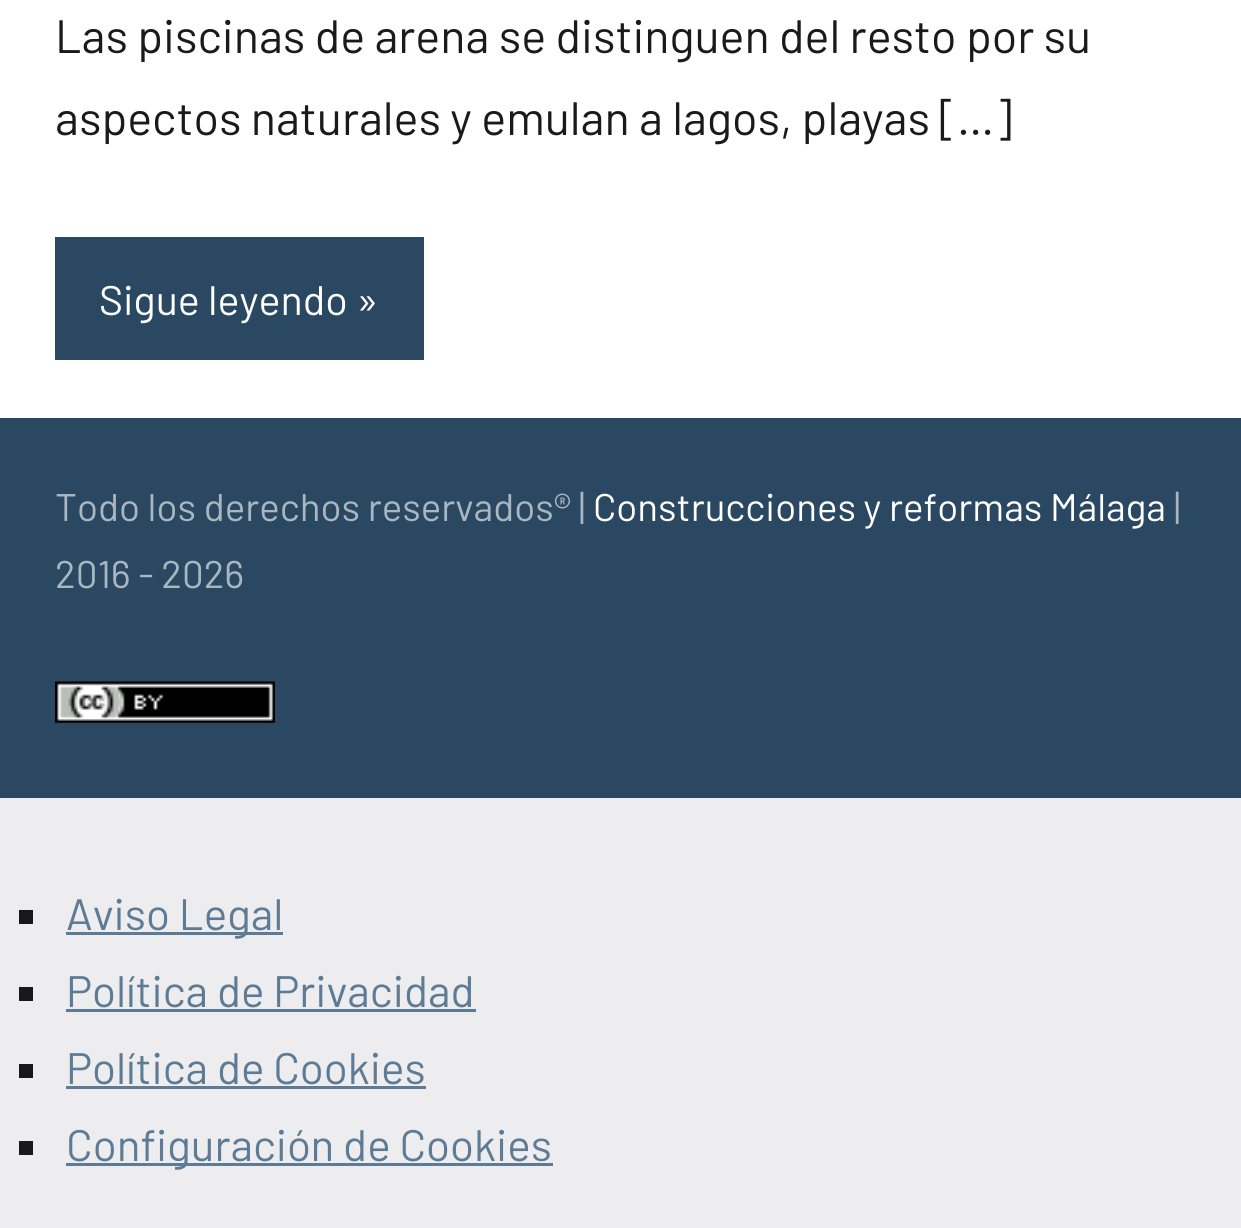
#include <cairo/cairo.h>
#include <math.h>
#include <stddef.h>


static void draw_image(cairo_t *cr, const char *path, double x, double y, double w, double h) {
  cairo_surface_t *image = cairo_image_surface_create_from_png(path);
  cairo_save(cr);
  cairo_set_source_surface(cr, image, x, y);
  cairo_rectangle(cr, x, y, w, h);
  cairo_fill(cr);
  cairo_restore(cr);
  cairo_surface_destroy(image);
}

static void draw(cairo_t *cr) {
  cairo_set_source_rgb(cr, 237 / 255.0, 237 / 255.0, 239 / 255.0);
  cairo_paint(cr);
  cairo_set_source_rgb(cr, 1, 1, 1);
  cairo_rectangle(cr, 0, 0, 1241, 418);
  cairo_fill(cr);
  cairo_set_source_rgb(cr, 42 / 255.0, 72 / 255.0, 97 / 255.0);
  cairo_rectangle(cr, 55, 237, 369, 123);
  cairo_fill(cr);
  cairo_rectangle(cr, 0, 418, 1241, 380);
  cairo_fill(cr);
  draw_image(cr, "images/1.png", 55, 681, 220, 42);
  cairo_set_source_rgb(cr, 24 / 255.0, 24 / 255.0, 24 / 255.0);
  cairo_rectangle(cr, 19, 910, 14, 14);
  cairo_fill(cr);
  cairo_set_source_rgb(cr, 93 / 255.0, 123 / 255.0, 148 / 255.0);
  cairo_rectangle(cr, 66, 932, 217, 3);
  cairo_fill(cr);
  cairo_set_source_rgb(cr, 24 / 255.0, 24 / 255.0, 24 / 255.0);
  cairo_rectangle(cr, 19, 987, 14, 14);
  cairo_fill(cr);
  cairo_set_source_rgb(cr, 93 / 255.0, 123 / 255.0, 148 / 255.0);
  cairo_rectangle(cr, 66, 1009, 410, 3);
  cairo_fill(cr);
  cairo_set_source_rgb(cr, 24 / 255.0, 24 / 255.0, 24 / 255.0);
  cairo_rectangle(cr, 19, 1064, 14, 14);
  cairo_fill(cr);
  cairo_set_source_rgb(cr, 93 / 255.0, 123 / 255.0, 148 / 255.0);
  cairo_rectangle(cr, 66, 1086, 360, 3);
  cairo_fill(cr);
  cairo_set_source_rgb(cr, 24 / 255.0, 24 / 255.0, 24 / 255.0);
  cairo_rectangle(cr, 19, 1141, 14, 14);
  cairo_fill(cr);
  cairo_set_source_rgb(cr, 93 / 255.0, 123 / 255.0, 148 / 255.0);
  cairo_rectangle(cr, 66, 1163, 487, 3);
  cairo_fill(cr);
  cairo_select_font_face(cr, "Barlow", CAIRO_FONT_SLANT_NORMAL, CAIRO_FONT_WEIGHT_NORMAL);
  cairo_set_font_size(cr, 46.75);
  cairo_set_source_rgb(cr, 26 / 255.0, 26 / 255.0, 26 / 255.0);
  cairo_move_to(cr, 55, 53);
  cairo_show_text(cr, "Las piscinas de arena se distinguen del resto por su");
  cairo_move_to(cr, 55, 135);
  cairo_show_text(cr, "aspectos naturales y emulan a lagos, playas […]");
  cairo_set_font_size(cr, 41.25);
  cairo_set_source_rgb(cr, 1, 1, 1);
  cairo_move_to(cr, 99, 315);
  cairo_show_text(cr, "Sigue leyendo »");
  cairo_set_font_size(cr, 38.5);
  cairo_set_source_rgb(cr, 170 / 255.0, 182 / 255.0, 192 / 255.0);
  cairo_move_to(cr, 55, 521);
  cairo_show_text(cr, "Todo los derechos reservados® |");
  cairo_set_source_rgb(cr, 1, 1, 1);
  cairo_move_to(cr, 593, 521);
  cairo_show_text(cr, "Construcciones y reformas Málaga");
  cairo_set_source_rgb(cr, 170 / 255.0, 182 / 255.0, 192 / 255.0);
  cairo_move_to(cr, 1174, 521);
  cairo_show_text(cr, "|");
  cairo_move_to(cr, 55, 588);
  cairo_show_text(cr, "2016 - 2026");
  cairo_set_font_size(cr, 44);
  cairo_set_source_rgb(cr, 93 / 255.0, 123 / 255.0, 148 / 255.0);
  cairo_move_to(cr, 66, 930);
  cairo_show_text(cr, "Aviso Legal");
  cairo_move_to(cr, 66, 1007);
  cairo_show_text(cr, "Política de Privacidad");
  cairo_move_to(cr, 66, 1084);
  cairo_show_text(cr, "Política de Cookies");
  cairo_move_to(cr, 66, 1161);
  cairo_show_text(cr, "Configuración de Cookies");
}

int main(void) {
  cairo_surface_t *surface = cairo_image_surface_create(CAIRO_FORMAT_RGB24, 1241, 1228);
  cairo_t *cr = cairo_create(surface);
  cairo_font_options_t *options = cairo_font_options_create();
  cairo_font_options_set_hint_metrics(options, CAIRO_HINT_METRICS_OFF);
  cairo_font_options_set_hint_style(options, CAIRO_HINT_STYLE_NONE);
  cairo_set_font_options(cr, options);
  cairo_set_miter_limit(cr, 4);
  draw(cr);
  cairo_surface_write_to_png(surface, "out.png");
  cairo_font_options_destroy(options);
  cairo_destroy(cr);
  cairo_surface_destroy(surface);
  return 0;
}
